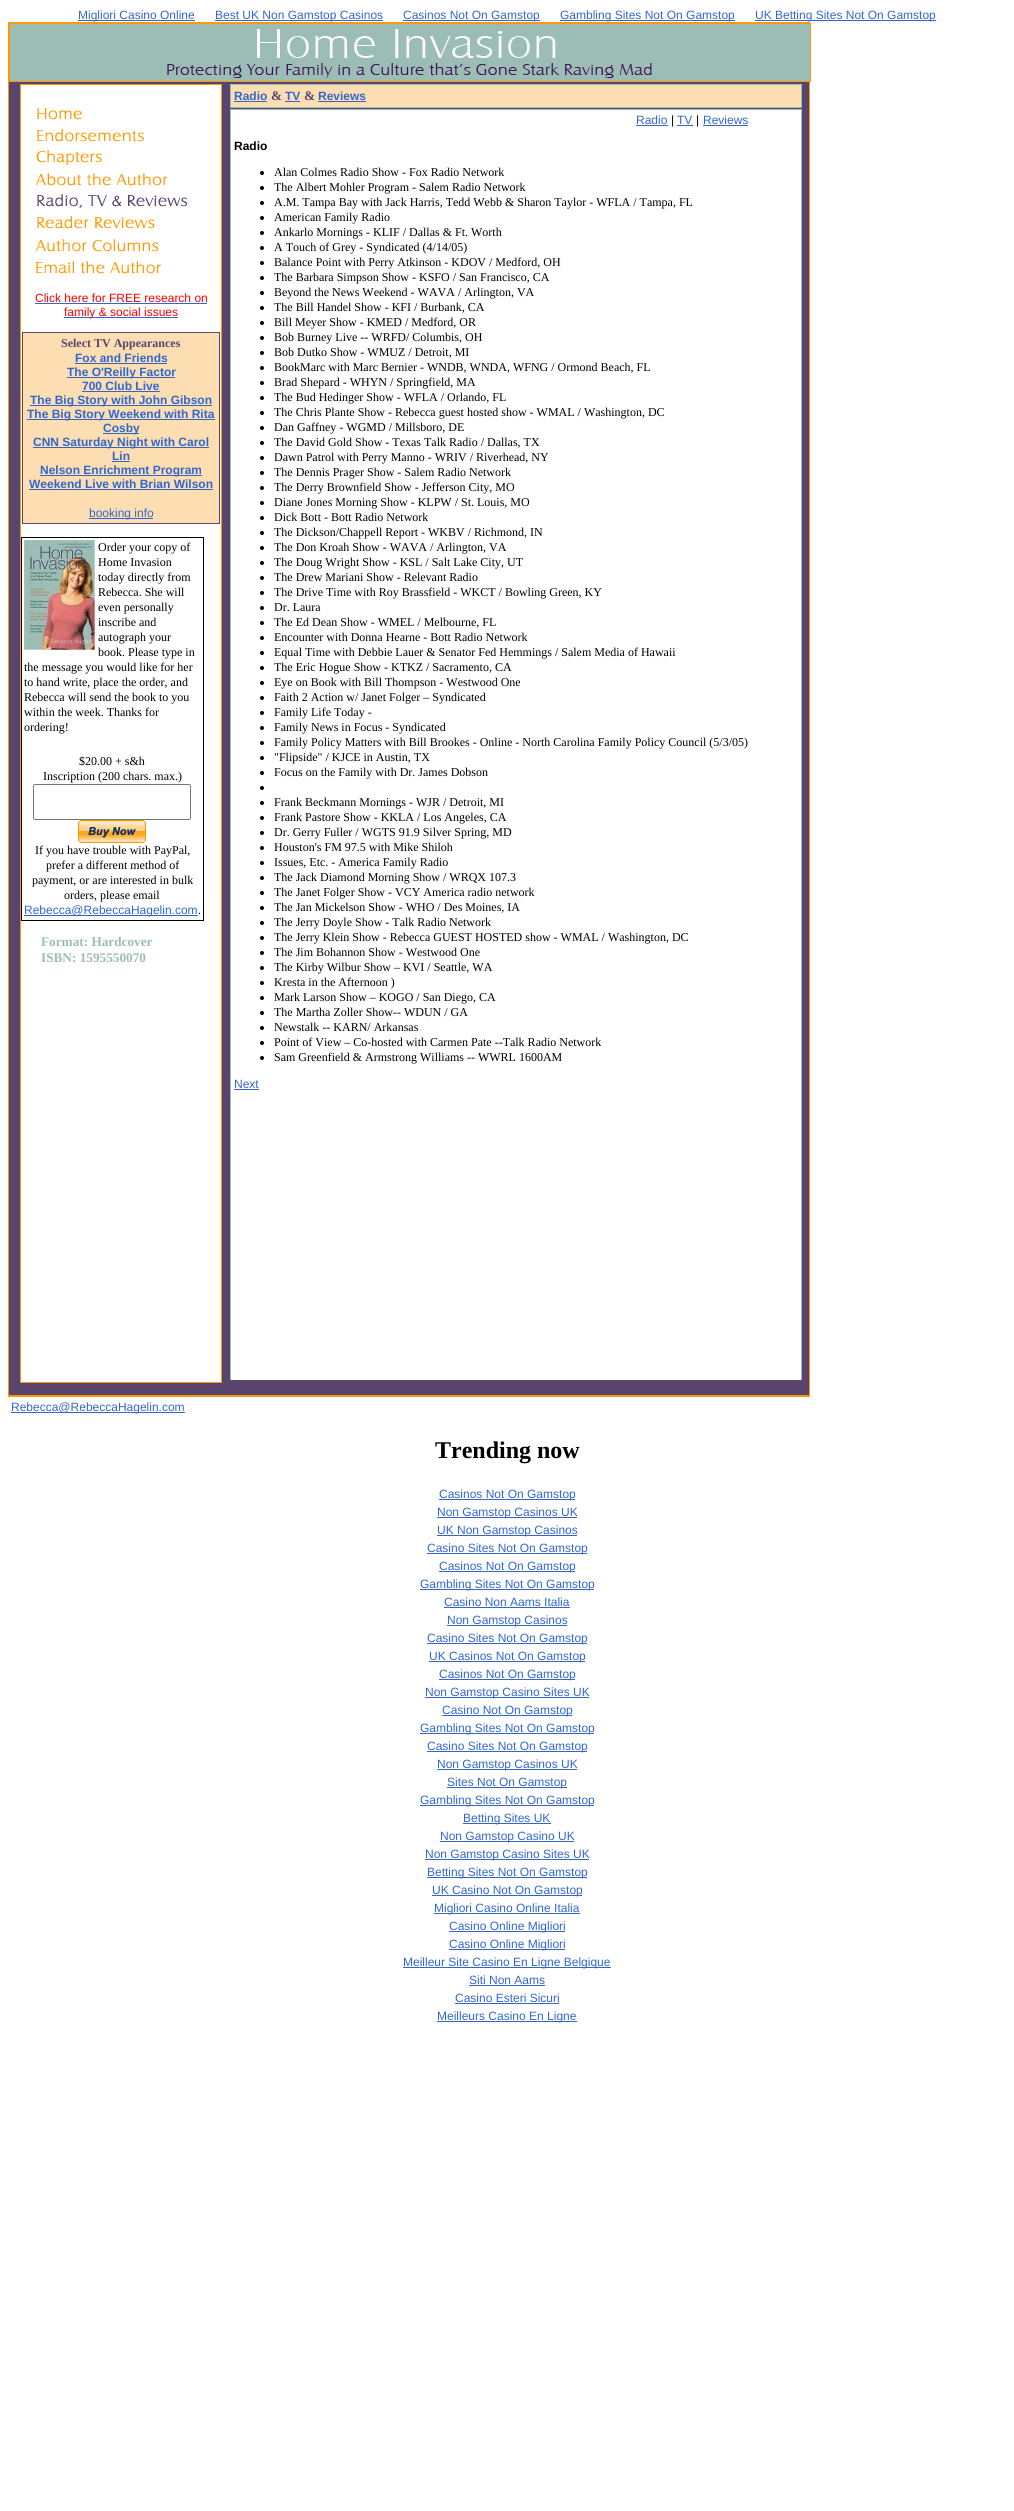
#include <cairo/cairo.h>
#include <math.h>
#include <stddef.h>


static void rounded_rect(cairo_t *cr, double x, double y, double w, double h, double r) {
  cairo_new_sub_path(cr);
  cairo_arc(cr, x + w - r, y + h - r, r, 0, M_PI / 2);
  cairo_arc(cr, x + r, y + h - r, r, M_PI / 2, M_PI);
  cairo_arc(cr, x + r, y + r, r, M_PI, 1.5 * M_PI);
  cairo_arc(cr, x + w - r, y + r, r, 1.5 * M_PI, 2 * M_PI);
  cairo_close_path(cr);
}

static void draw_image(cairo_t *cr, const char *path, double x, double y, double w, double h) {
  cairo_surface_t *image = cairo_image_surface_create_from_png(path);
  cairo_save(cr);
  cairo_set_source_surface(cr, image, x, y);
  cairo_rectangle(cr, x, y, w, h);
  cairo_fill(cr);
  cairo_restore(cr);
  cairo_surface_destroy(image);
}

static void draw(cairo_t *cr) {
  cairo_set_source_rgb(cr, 1, 1, 1);
  cairo_paint(cr);
  cairo_set_source_rgb(cr, 51 / 255.0, 102 / 255.0, 204 / 255.0);
  cairo_rectangle(cr, 78, 20, 117, 1);
  cairo_fill(cr);
  cairo_rectangle(cr, 215, 20, 168, 1);
  cairo_fill(cr);
  cairo_rectangle(cr, 403, 20, 137, 1);
  cairo_fill(cr);
  cairo_rectangle(cr, 560, 20, 175, 1);
  cairo_fill(cr);
  cairo_rectangle(cr, 755, 20, 181, 1);
  cairo_fill(cr);
  cairo_set_source_rgb(cr, 89 / 255.0, 68 / 255.0, 110 / 255.0);
  cairo_rectangle(cr, 9, 82, 800, 1313);
  cairo_fill(cr);
  cairo_set_source_rgb(cr, 1, 153 / 255.0, 0);
  cairo_rectangle(cr, 8, 22, 802, 1);
  cairo_fill(cr);
  cairo_rectangle(cr, 809, 22, 1, 1375);
  cairo_fill(cr);
  cairo_rectangle(cr, 8, 1395, 802, 2);
  cairo_fill(cr);
  cairo_rectangle(cr, 8, 22, 1, 1375);
  cairo_fill(cr);
  cairo_set_source_rgb(cr, 156 / 255.0, 189 / 255.0, 182 / 255.0);
  cairo_rectangle(cr, 9.5, 23.5, 801, 58);
  cairo_fill_preserve(cr);
  cairo_set_source_rgb(cr, 1, 153 / 255.0, 0);
  cairo_set_line_width(cr, 1);
  cairo_stroke(cr);
  draw_image(cr, "images/1.png", 167, 29, 485, 49);
  cairo_set_source_rgb(cr, 252 / 255.0, 222 / 255.0, 178 / 255.0);
  cairo_rectangle(cr, 230.5, 84.5, 571, 23);
  cairo_fill_preserve(cr);
  cairo_set_source_rgb(cr, 156 / 255.0, 189 / 255.0, 182 / 255.0);
  cairo_stroke(cr);
  cairo_set_source_rgb(cr, 51 / 255.0, 102 / 255.0, 204 / 255.0);
  cairo_rectangle(cr, 234, 101, 33, 1);
  cairo_fill(cr);
  cairo_rectangle(cr, 285, 101, 15, 1);
  cairo_fill(cr);
  cairo_rectangle(cr, 318, 101, 48, 1);
  cairo_fill(cr);
  cairo_set_source_rgb(cr, 1, 1, 1);
  cairo_rectangle(cr, 20.5, 84.5, 201, 1298);
  cairo_fill_preserve(cr);
  cairo_set_source_rgb(cr, 1, 153 / 255.0, 0);
  cairo_stroke(cr);
  draw_image(cr, "images/2.png", 37, 108, 45, 12);
  draw_image(cr, "images/3.png", 37, 129, 107, 13);
  draw_image(cr, "images/4.png", 36, 150, 66, 15);
  draw_image(cr, "images/5.png", 36, 173, 131, 13);
  draw_image(cr, "images/6.png", 37, 194, 151, 14);
  draw_image(cr, "images/7.png", 37, 216, 118, 13);
  draw_image(cr, "images/8.png", 36, 239, 123, 13);
  draw_image(cr, "images/9.png", 36, 261, 125, 13);
  cairo_set_source_rgb(cr, 51 / 255.0, 102 / 255.0, 204 / 255.0);
  cairo_rectangle(cr, 35, 303, 172, 1);
  cairo_fill(cr);
  cairo_rectangle(cr, 64, 317, 114, 1);
  cairo_fill(cr);
  cairo_set_source_rgb(cr, 252 / 255.0, 222 / 255.0, 178 / 255.0);
  cairo_rectangle(cr, 22.5, 332.5, 197, 191);
  cairo_fill_preserve(cr);
  cairo_set_source_rgb(cr, 89 / 255.0, 68 / 255.0, 110 / 255.0);
  cairo_stroke(cr);
  cairo_set_source_rgb(cr, 51 / 255.0, 102 / 255.0, 204 / 255.0);
  cairo_rectangle(cr, 75, 363, 92, 1);
  cairo_fill(cr);
  cairo_rectangle(cr, 67, 377, 108, 1);
  cairo_fill(cr);
  cairo_rectangle(cr, 82, 391, 78, 1);
  cairo_fill(cr);
  cairo_rectangle(cr, 30, 405, 182, 1);
  cairo_fill(cr);
  cairo_rectangle(cr, 27, 419, 188, 1);
  cairo_fill(cr);
  cairo_rectangle(cr, 103, 433, 36, 1);
  cairo_fill(cr);
  cairo_rectangle(cr, 33, 447, 176, 1);
  cairo_fill(cr);
  cairo_rectangle(cr, 112, 461, 18, 1);
  cairo_fill(cr);
  cairo_rectangle(cr, 40, 475, 162, 1);
  cairo_fill(cr);
  cairo_rectangle(cr, 29, 489, 184, 1);
  cairo_fill(cr);
  cairo_rectangle(cr, 89, 518, 64, 1);
  cairo_fill(cr);
  cairo_set_source_rgb(cr, 0, 0, 0);
  cairo_rectangle(cr, 21, 537, 183, 384);
  cairo_fill(cr);
  cairo_set_source_rgb(cr, 1, 1, 1);
  cairo_rectangle(cr, 22, 538, 181, 382);
  cairo_fill(cr);
  draw_image(cr, "images/10.png", 24, 540, 71, 110);
  rounded_rect(cr, 33.5, 784.5, 157, 35, 1.5);
  cairo_set_source_rgb(cr, 118 / 255.0, 118 / 255.0, 118 / 255.0);
  cairo_stroke(cr);
  draw_image(cr, "images/11.png", 78, 820, 68, 23);
  cairo_set_source_rgb(cr, 51 / 255.0, 102 / 255.0, 204 / 255.0);
  cairo_rectangle(cr, 24, 915, 174, 1);
  cairo_fill(cr);
  cairo_set_source_rgb(cr, 1, 1, 1);
  cairo_rectangle(cr, 231, 110, 570, 1270);
  cairo_fill(cr);
  cairo_set_source_rgb(cr, 156 / 255.0, 189 / 255.0, 182 / 255.0);
  cairo_rectangle(cr, 230, 109, 572, 1);
  cairo_fill(cr);
  cairo_rectangle(cr, 801, 109, 1, 1271);
  cairo_fill(cr);
  cairo_rectangle(cr, 230, 109, 1, 1271);
  cairo_fill(cr);
  cairo_set_source_rgb(cr, 51 / 255.0, 102 / 255.0, 204 / 255.0);
  cairo_rectangle(cr, 636, 125, 32, 1);
  cairo_fill(cr);
  cairo_rectangle(cr, 677, 125, 16, 1);
  cairo_fill(cr);
  cairo_rectangle(cr, 703, 125, 45, 1);
  cairo_fill(cr);
  cairo_set_source_rgb(cr, 0, 0, 0);
  cairo_arc(cr, 262, 173, 2, 0, 2 * M_PI);
  cairo_fill(cr);
  cairo_arc(cr, 262, 188, 2, 0, 2 * M_PI);
  cairo_fill(cr);
  cairo_arc(cr, 262, 203, 2, 0, 2 * M_PI);
  cairo_fill(cr);
  cairo_arc(cr, 262, 218, 2, 0, 2 * M_PI);
  cairo_fill(cr);
  cairo_arc(cr, 262, 233, 2, 0, 2 * M_PI);
  cairo_fill(cr);
  cairo_arc(cr, 262, 248, 2, 0, 2 * M_PI);
  cairo_fill(cr);
  cairo_arc(cr, 262, 263, 2, 0, 2 * M_PI);
  cairo_fill(cr);
  cairo_arc(cr, 262, 278, 2, 0, 2 * M_PI);
  cairo_fill(cr);
  cairo_arc(cr, 262, 293, 2, 0, 2 * M_PI);
  cairo_fill(cr);
  cairo_arc(cr, 262, 308, 2, 0, 2 * M_PI);
  cairo_fill(cr);
  cairo_arc(cr, 262, 323, 2, 0, 2 * M_PI);
  cairo_fill(cr);
  cairo_arc(cr, 262, 338, 2, 0, 2 * M_PI);
  cairo_fill(cr);
  cairo_arc(cr, 262, 353, 2, 0, 2 * M_PI);
  cairo_fill(cr);
  cairo_arc(cr, 262, 368, 2, 0, 2 * M_PI);
  cairo_fill(cr);
  cairo_arc(cr, 262, 383, 2, 0, 2 * M_PI);
  cairo_fill(cr);
  cairo_arc(cr, 262, 398, 2, 0, 2 * M_PI);
  cairo_fill(cr);
  cairo_arc(cr, 262, 413, 2, 0, 2 * M_PI);
  cairo_fill(cr);
  cairo_arc(cr, 262, 428, 2, 0, 2 * M_PI);
  cairo_fill(cr);
  cairo_arc(cr, 262, 443, 2, 0, 2 * M_PI);
  cairo_fill(cr);
  cairo_arc(cr, 262, 458, 2, 0, 2 * M_PI);
  cairo_fill(cr);
  cairo_arc(cr, 262, 473, 2, 0, 2 * M_PI);
  cairo_fill(cr);
  cairo_arc(cr, 262, 488, 2, 0, 2 * M_PI);
  cairo_fill(cr);
  cairo_arc(cr, 262, 503, 2, 0, 2 * M_PI);
  cairo_fill(cr);
  cairo_arc(cr, 262, 518, 2, 0, 2 * M_PI);
  cairo_fill(cr);
  cairo_arc(cr, 262, 533, 2, 0, 2 * M_PI);
  cairo_fill(cr);
  cairo_arc(cr, 262, 548, 2, 0, 2 * M_PI);
  cairo_fill(cr);
  cairo_arc(cr, 262, 563, 2, 0, 2 * M_PI);
  cairo_fill(cr);
  cairo_arc(cr, 262, 578, 2, 0, 2 * M_PI);
  cairo_fill(cr);
  cairo_arc(cr, 262, 593, 2, 0, 2 * M_PI);
  cairo_fill(cr);
  cairo_arc(cr, 262, 608, 2, 0, 2 * M_PI);
  cairo_fill(cr);
  cairo_arc(cr, 262, 623, 2, 0, 2 * M_PI);
  cairo_fill(cr);
  cairo_arc(cr, 262, 638, 2, 0, 2 * M_PI);
  cairo_fill(cr);
  cairo_arc(cr, 262, 653, 2, 0, 2 * M_PI);
  cairo_fill(cr);
  cairo_arc(cr, 262, 668, 2, 0, 2 * M_PI);
  cairo_fill(cr);
  cairo_arc(cr, 262, 683, 2, 0, 2 * M_PI);
  cairo_fill(cr);
  cairo_arc(cr, 262, 698, 2, 0, 2 * M_PI);
  cairo_fill(cr);
  cairo_arc(cr, 262, 713, 2, 0, 2 * M_PI);
  cairo_fill(cr);
  cairo_arc(cr, 262, 728, 2, 0, 2 * M_PI);
  cairo_fill(cr);
  cairo_arc(cr, 262, 743, 2, 0, 2 * M_PI);
  cairo_fill(cr);
  cairo_arc(cr, 262, 758, 2, 0, 2 * M_PI);
  cairo_fill(cr);
  cairo_arc(cr, 262, 773, 2, 0, 2 * M_PI);
  cairo_fill(cr);
  cairo_arc(cr, 262, 788, 2, 0, 2 * M_PI);
  cairo_fill(cr);
  cairo_arc(cr, 262, 803, 2, 0, 2 * M_PI);
  cairo_fill(cr);
  cairo_arc(cr, 262, 818, 2, 0, 2 * M_PI);
  cairo_fill(cr);
  cairo_arc(cr, 262, 833, 2, 0, 2 * M_PI);
  cairo_fill(cr);
  cairo_arc(cr, 262, 848, 2, 0, 2 * M_PI);
  cairo_fill(cr);
  cairo_arc(cr, 262, 863, 2, 0, 2 * M_PI);
  cairo_fill(cr);
  cairo_arc(cr, 262, 878, 2, 0, 2 * M_PI);
  cairo_fill(cr);
  cairo_arc(cr, 262, 893, 2, 0, 2 * M_PI);
  cairo_fill(cr);
  cairo_arc(cr, 262, 908, 2, 0, 2 * M_PI);
  cairo_fill(cr);
  cairo_arc(cr, 262, 923, 2, 0, 2 * M_PI);
  cairo_fill(cr);
  cairo_arc(cr, 262, 938, 2, 0, 2 * M_PI);
  cairo_fill(cr);
  cairo_arc(cr, 262, 953, 2, 0, 2 * M_PI);
  cairo_fill(cr);
  cairo_arc(cr, 262, 968, 2, 0, 2 * M_PI);
  cairo_fill(cr);
  cairo_arc(cr, 262, 983, 2, 0, 2 * M_PI);
  cairo_fill(cr);
  cairo_arc(cr, 262, 998, 2, 0, 2 * M_PI);
  cairo_fill(cr);
  cairo_arc(cr, 262, 1013, 2, 0, 2 * M_PI);
  cairo_fill(cr);
  cairo_arc(cr, 262, 1028, 2, 0, 2 * M_PI);
  cairo_fill(cr);
  cairo_arc(cr, 262, 1043, 2, 0, 2 * M_PI);
  cairo_fill(cr);
  cairo_arc(cr, 262, 1058, 2, 0, 2 * M_PI);
  cairo_fill(cr);
  cairo_set_source_rgb(cr, 51 / 255.0, 102 / 255.0, 204 / 255.0);
  cairo_rectangle(cr, 234, 1089, 25, 1);
  cairo_fill(cr);
  cairo_rectangle(cr, 11, 1412, 174, 1);
  cairo_fill(cr);
  cairo_rectangle(cr, 439, 1499, 136, 1);
  cairo_fill(cr);
  cairo_rectangle(cr, 437, 1517, 140, 1);
  cairo_fill(cr);
  cairo_rectangle(cr, 437, 1535, 140, 1);
  cairo_fill(cr);
  cairo_rectangle(cr, 427, 1553, 160, 1);
  cairo_fill(cr);
  cairo_rectangle(cr, 439, 1571, 136, 1);
  cairo_fill(cr);
  cairo_rectangle(cr, 420, 1589, 174, 1);
  cairo_fill(cr);
  cairo_rectangle(cr, 444, 1607, 126, 1);
  cairo_fill(cr);
  cairo_rectangle(cr, 447, 1625, 120, 1);
  cairo_fill(cr);
  cairo_rectangle(cr, 427, 1643, 160, 1);
  cairo_fill(cr);
  cairo_rectangle(cr, 429, 1661, 156, 1);
  cairo_fill(cr);
  cairo_rectangle(cr, 439, 1679, 136, 1);
  cairo_fill(cr);
  cairo_rectangle(cr, 425, 1697, 164, 1);
  cairo_fill(cr);
  cairo_rectangle(cr, 442, 1715, 130, 1);
  cairo_fill(cr);
  cairo_rectangle(cr, 420, 1733, 174, 1);
  cairo_fill(cr);
  cairo_rectangle(cr, 427, 1751, 160, 1);
  cairo_fill(cr);
  cairo_rectangle(cr, 437, 1769, 140, 1);
  cairo_fill(cr);
  cairo_rectangle(cr, 447, 1787, 120, 1);
  cairo_fill(cr);
  cairo_rectangle(cr, 420, 1805, 174, 1);
  cairo_fill(cr);
  cairo_rectangle(cr, 463, 1823, 88, 1);
  cairo_fill(cr);
  cairo_rectangle(cr, 440, 1841, 134, 1);
  cairo_fill(cr);
  cairo_rectangle(cr, 425, 1859, 164, 1);
  cairo_fill(cr);
  cairo_rectangle(cr, 427, 1877, 160, 1);
  cairo_fill(cr);
  cairo_rectangle(cr, 432, 1895, 150, 1);
  cairo_fill(cr);
  cairo_rectangle(cr, 434, 1913, 146, 1);
  cairo_fill(cr);
  cairo_rectangle(cr, 449, 1931, 116, 1);
  cairo_fill(cr);
  cairo_rectangle(cr, 449, 1949, 116, 1);
  cairo_fill(cr);
  cairo_rectangle(cr, 403, 1967, 208, 1);
  cairo_fill(cr);
  cairo_rectangle(cr, 469, 1985, 76, 1);
  cairo_fill(cr);
  cairo_rectangle(cr, 455, 2003, 104, 1);
  cairo_fill(cr);
  cairo_rectangle(cr, 437, 2021, 140, 1);
  cairo_fill(cr);
  cairo_select_font_face(cr, "Liberation Sans", CAIRO_FONT_SLANT_NORMAL, CAIRO_FONT_WEIGHT_NORMAL);
  cairo_set_font_size(cr, 12);
  cairo_move_to(cr, 78, 19);
  cairo_show_text(cr, "Migliori Casino Online");
  cairo_move_to(cr, 215, 19);
  cairo_show_text(cr, "Best UK Non Gamstop Casinos");
  cairo_move_to(cr, 403, 19);
  cairo_show_text(cr, "Casinos Not On Gamstop");
  cairo_move_to(cr, 560, 19);
  cairo_show_text(cr, "Gambling Sites Not On Gamstop");
  cairo_move_to(cr, 755, 19);
  cairo_show_text(cr, "UK Betting Sites Not On Gamstop");
  cairo_select_font_face(cr, "Liberation Sans", CAIRO_FONT_SLANT_NORMAL, CAIRO_FONT_WEIGHT_BOLD);
  cairo_move_to(cr, 234, 100);
  cairo_show_text(cr, "Radio");
  cairo_select_font_face(cr, "Liberation Serif", CAIRO_FONT_SLANT_NORMAL, CAIRO_FONT_WEIGHT_BOLD);
  cairo_set_font_size(cr, 13.25);
  cairo_set_source_rgb(cr, 89 / 255.0, 68 / 255.0, 110 / 255.0);
  cairo_move_to(cr, 271, 100);
  cairo_show_text(cr, "&");
  cairo_select_font_face(cr, "Liberation Sans", CAIRO_FONT_SLANT_NORMAL, CAIRO_FONT_WEIGHT_BOLD);
  cairo_set_font_size(cr, 12);
  cairo_set_source_rgb(cr, 51 / 255.0, 102 / 255.0, 204 / 255.0);
  cairo_move_to(cr, 285, 100);
  cairo_show_text(cr, "TV");
  cairo_select_font_face(cr, "Liberation Serif", CAIRO_FONT_SLANT_NORMAL, CAIRO_FONT_WEIGHT_BOLD);
  cairo_set_font_size(cr, 13.25);
  cairo_set_source_rgb(cr, 89 / 255.0, 68 / 255.0, 110 / 255.0);
  cairo_move_to(cr, 304, 100);
  cairo_show_text(cr, "&");
  cairo_select_font_face(cr, "Liberation Sans", CAIRO_FONT_SLANT_NORMAL, CAIRO_FONT_WEIGHT_BOLD);
  cairo_set_font_size(cr, 12);
  cairo_set_source_rgb(cr, 51 / 255.0, 102 / 255.0, 204 / 255.0);
  cairo_move_to(cr, 318, 100);
  cairo_show_text(cr, "Reviews");
  cairo_select_font_face(cr, "Liberation Sans", CAIRO_FONT_SLANT_NORMAL, CAIRO_FONT_WEIGHT_NORMAL);
  cairo_set_source_rgb(cr, 1, 0, 0);
  cairo_move_to(cr, 35, 302);
  cairo_show_text(cr, "Click here for FREE research on");
  cairo_move_to(cr, 64, 316);
  cairo_show_text(cr, "family & social issues");
  cairo_select_font_face(cr, "Liberation Serif", CAIRO_FONT_SLANT_NORMAL, CAIRO_FONT_WEIGHT_BOLD);
  cairo_set_source_rgb(cr, 89 / 255.0, 68 / 255.0, 110 / 255.0);
  cairo_move_to(cr, 61, 347);
  cairo_show_text(cr, "Select TV Appearances");
  cairo_select_font_face(cr, "Liberation Sans", CAIRO_FONT_SLANT_NORMAL, CAIRO_FONT_WEIGHT_BOLD);
  cairo_set_source_rgb(cr, 51 / 255.0, 102 / 255.0, 204 / 255.0);
  cairo_move_to(cr, 75, 362);
  cairo_show_text(cr, "Fox and Friends");
  cairo_move_to(cr, 67, 376);
  cairo_show_text(cr, "The O'Reilly Factor");
  cairo_move_to(cr, 82, 390);
  cairo_show_text(cr, "700 Club Live");
  cairo_move_to(cr, 30, 404);
  cairo_show_text(cr, "The Big Story with John Gibson");
  cairo_move_to(cr, 27, 418);
  cairo_show_text(cr, "The Big Story Weekend with Rita");
  cairo_move_to(cr, 103, 432);
  cairo_show_text(cr, "Cosby");
  cairo_move_to(cr, 33, 446);
  cairo_show_text(cr, "CNN Saturday Night with Carol");
  cairo_move_to(cr, 112, 460);
  cairo_show_text(cr, "Lin");
  cairo_move_to(cr, 40, 474);
  cairo_show_text(cr, "Nelson Enrichment Program");
  cairo_move_to(cr, 29, 488);
  cairo_show_text(cr, "Weekend Live with Brian Wilson");
  cairo_select_font_face(cr, "Liberation Sans", CAIRO_FONT_SLANT_NORMAL, CAIRO_FONT_WEIGHT_NORMAL);
  cairo_move_to(cr, 89, 517);
  cairo_show_text(cr, "booking info");
  cairo_select_font_face(cr, "Liberation Serif", CAIRO_FONT_SLANT_NORMAL, CAIRO_FONT_WEIGHT_NORMAL);
  cairo_set_source_rgb(cr, 0, 0, 0);
  cairo_move_to(cr, 98, 551);
  cairo_show_text(cr, "Order your copy of");
  cairo_move_to(cr, 98, 566);
  cairo_show_text(cr, "Home Invasion");
  cairo_move_to(cr, 98, 581);
  cairo_show_text(cr, "today directly from");
  cairo_move_to(cr, 98, 596);
  cairo_show_text(cr, "Rebecca. She will");
  cairo_move_to(cr, 98, 611);
  cairo_show_text(cr, "even personally");
  cairo_move_to(cr, 98, 626);
  cairo_show_text(cr, "inscribe and");
  cairo_move_to(cr, 98, 641);
  cairo_show_text(cr, "autograph your");
  cairo_move_to(cr, 98, 656);
  cairo_show_text(cr, "book. Please type in");
  cairo_move_to(cr, 24, 671);
  cairo_show_text(cr, "the message you would like for her");
  cairo_move_to(cr, 24, 686);
  cairo_show_text(cr, "to hand write, place the order, and");
  cairo_move_to(cr, 24, 701);
  cairo_show_text(cr, "Rebecca will send the book to you");
  cairo_move_to(cr, 24, 716);
  cairo_show_text(cr, "within the week. Thanks for");
  cairo_move_to(cr, 24, 731);
  cairo_show_text(cr, "ordering!");
  cairo_move_to(cr, 79, 765);
  cairo_show_text(cr, "$20.00 + s&h");
  cairo_move_to(cr, 43, 780);
  cairo_show_text(cr, "Inscription (200 chars. max.)");
  cairo_move_to(cr, 35, 854);
  cairo_show_text(cr, "If you have trouble with PayPal,");
  cairo_move_to(cr, 46, 869);
  cairo_show_text(cr, "prefer a different method of");
  cairo_move_to(cr, 32, 884);
  cairo_show_text(cr, "payment, or are interested in bulk");
  cairo_move_to(cr, 64, 899);
  cairo_show_text(cr, "orders, please email");
  cairo_select_font_face(cr, "Liberation Sans", CAIRO_FONT_SLANT_NORMAL, CAIRO_FONT_WEIGHT_NORMAL);
  cairo_set_source_rgb(cr, 51 / 255.0, 102 / 255.0, 204 / 255.0);
  cairo_move_to(cr, 24, 914);
  cairo_show_text(cr, "Rebecca@RebeccaHagelin.com");
  cairo_select_font_face(cr, "Liberation Serif", CAIRO_FONT_SLANT_NORMAL, CAIRO_FONT_WEIGHT_NORMAL);
  cairo_set_source_rgb(cr, 0, 0, 0);
  cairo_move_to(cr, 198, 914);
  cairo_show_text(cr, ".");
  cairo_select_font_face(cr, "Liberation Serif", CAIRO_FONT_SLANT_NORMAL, CAIRO_FONT_WEIGHT_BOLD);
  cairo_set_font_size(cr, 13.25);
  cairo_set_source_rgb(cr, 156 / 255.0, 189 / 255.0, 182 / 255.0);
  cairo_move_to(cr, 41, 946);
  cairo_show_text(cr, "Format: Hardcover");
  cairo_move_to(cr, 41, 962);
  cairo_show_text(cr, "ISBN: 1595550070");
  cairo_select_font_face(cr, "Liberation Sans", CAIRO_FONT_SLANT_NORMAL, CAIRO_FONT_WEIGHT_NORMAL);
  cairo_set_font_size(cr, 12);
  cairo_set_source_rgb(cr, 51 / 255.0, 102 / 255.0, 204 / 255.0);
  cairo_move_to(cr, 636, 124);
  cairo_show_text(cr, "Radio");
  cairo_set_source_rgb(cr, 0, 0, 0);
  cairo_move_to(cr, 671, 124);
  cairo_show_text(cr, "|");
  cairo_set_source_rgb(cr, 51 / 255.0, 102 / 255.0, 204 / 255.0);
  cairo_move_to(cr, 677, 124);
  cairo_show_text(cr, "TV");
  cairo_set_source_rgb(cr, 0, 0, 0);
  cairo_move_to(cr, 696, 124);
  cairo_show_text(cr, "|");
  cairo_set_source_rgb(cr, 51 / 255.0, 102 / 255.0, 204 / 255.0);
  cairo_move_to(cr, 703, 124);
  cairo_show_text(cr, "Reviews");
  cairo_select_font_face(cr, "Liberation Sans", CAIRO_FONT_SLANT_NORMAL, CAIRO_FONT_WEIGHT_BOLD);
  cairo_set_source_rgb(cr, 0, 0, 0);
  cairo_move_to(cr, 234, 150);
  cairo_show_text(cr, "Radio");
  cairo_select_font_face(cr, "Liberation Serif", CAIRO_FONT_SLANT_NORMAL, CAIRO_FONT_WEIGHT_NORMAL);
  cairo_move_to(cr, 274, 176);
  cairo_show_text(cr, "Alan Colmes Radio Show - Fox Radio Network");
  cairo_move_to(cr, 274, 191);
  cairo_show_text(cr, "The Albert Mohler Program - Salem Radio Network");
  cairo_move_to(cr, 274, 206);
  cairo_show_text(cr, "A.M. Tampa Bay with Jack Harris, Tedd Webb & Sharon Taylor - WFLA / Tampa, FL");
  cairo_move_to(cr, 274, 221);
  cairo_show_text(cr, "American Family Radio");
  cairo_move_to(cr, 274, 236);
  cairo_show_text(cr, "Ankarlo Mornings - KLIF / Dallas & Ft. Worth");
  cairo_move_to(cr, 274, 251);
  cairo_show_text(cr, "A Touch of Grey - Syndicated (4/14/05)");
  cairo_move_to(cr, 274, 266);
  cairo_show_text(cr, "Balance Point with Perry Atkinson - KDOV / Medford, OH");
  cairo_move_to(cr, 274, 281);
  cairo_show_text(cr, "The Barbara Simpson Show - KSFO / San Francisco, CA");
  cairo_move_to(cr, 274, 296);
  cairo_show_text(cr, "Beyond the News Weekend - WAVA / Arlington, VA");
  cairo_move_to(cr, 274, 311);
  cairo_show_text(cr, "The Bill Handel Show - KFI / Burbank, CA");
  cairo_move_to(cr, 274, 326);
  cairo_show_text(cr, "Bill Meyer Show - KMED / Medford, OR");
  cairo_move_to(cr, 274, 341);
  cairo_show_text(cr, "Bob Burney Live -- WRFD/ Columbis, OH");
  cairo_move_to(cr, 274, 356);
  cairo_show_text(cr, "Bob Dutko Show - WMUZ / Detroit, MI");
  cairo_move_to(cr, 274, 371);
  cairo_show_text(cr, "BookMarc with Marc Bernier - WNDB, WNDA, WFNG / Ormond Beach, FL");
  cairo_move_to(cr, 274, 386);
  cairo_show_text(cr, "Brad Shepard - WHYN / Springfield, MA");
  cairo_move_to(cr, 274, 401);
  cairo_show_text(cr, "The Bud Hedinger Show - WFLA / Orlando, FL");
  cairo_move_to(cr, 274, 416);
  cairo_show_text(cr, "The Chris Plante Show - Rebecca guest hosted show - WMAL / Washington, DC");
  cairo_move_to(cr, 274, 431);
  cairo_show_text(cr, "Dan Gaffney - WGMD / Millsboro, DE");
  cairo_move_to(cr, 274, 446);
  cairo_show_text(cr, "The David Gold Show - Texas Talk Radio / Dallas, TX");
  cairo_move_to(cr, 274, 461);
  cairo_show_text(cr, "Dawn Patrol with Perry Manno - WRIV / Riverhead, NY");
  cairo_move_to(cr, 274, 476);
  cairo_show_text(cr, "The Dennis Prager Show - Salem Radio Network");
  cairo_move_to(cr, 274, 491);
  cairo_show_text(cr, "The Derry Brownfield Show - Jefferson City, MO");
  cairo_move_to(cr, 274, 506);
  cairo_show_text(cr, "Diane Jones Morning Show - KLPW / St. Louis, MO");
  cairo_move_to(cr, 274, 521);
  cairo_show_text(cr, "Dick Bott - Bott Radio Network");
  cairo_move_to(cr, 274, 536);
  cairo_show_text(cr, "The Dickson/Chappell Report - WKBV / Richmond, IN");
  cairo_move_to(cr, 274, 551);
  cairo_show_text(cr, "The Don Kroah Show - WAVA / Arlington, VA");
  cairo_move_to(cr, 274, 566);
  cairo_show_text(cr, "The Doug Wright Show - KSL / Salt Lake City, UT");
  cairo_move_to(cr, 274, 581);
  cairo_show_text(cr, "The Drew Mariani Show - Relevant Radio");
  cairo_move_to(cr, 274, 596);
  cairo_show_text(cr, "The Drive Time with Roy Brassfield - WKCT / Bowling Green, KY");
  cairo_move_to(cr, 274, 611);
  cairo_show_text(cr, "Dr. Laura");
  cairo_move_to(cr, 274, 626);
  cairo_show_text(cr, "The Ed Dean Show - WMEL / Melbourne, FL");
  cairo_move_to(cr, 274, 641);
  cairo_show_text(cr, "Encounter with Donna Hearne - Bott Radio Network");
  cairo_move_to(cr, 274, 656);
  cairo_show_text(cr, "Equal Time with Debbie Lauer & Senator Fed Hemmings / Salem Media of Hawaii");
  cairo_move_to(cr, 274, 671);
  cairo_show_text(cr, "The Eric Hogue Show - KTKZ / Sacramento, CA");
  cairo_move_to(cr, 274, 686);
  cairo_show_text(cr, "Eye on Book with Bill Thompson - Westwood One");
  cairo_move_to(cr, 274, 701);
  cairo_show_text(cr, "Faith 2 Action w/ Janet Folger – Syndicated");
  cairo_move_to(cr, 274, 716);
  cairo_show_text(cr, "Family Life Today -");
  cairo_move_to(cr, 274, 731);
  cairo_show_text(cr, "Family News in Focus - Syndicated");
  cairo_move_to(cr, 274, 746);
  cairo_show_text(cr, "Family Policy Matters with Bill Brookes - Online - North Carolina Family Policy Council (5/3/05)");
  cairo_move_to(cr, 274, 761);
  cairo_show_text(cr, "\"Flipside\" / KJCE in Austin, TX");
  cairo_move_to(cr, 274, 776);
  cairo_show_text(cr, "Focus on the Family with Dr. James Dobson");
  cairo_move_to(cr, 274, 806);
  cairo_show_text(cr, "Frank Beckmann Mornings - WJR / Detroit, MI");
  cairo_move_to(cr, 274, 821);
  cairo_show_text(cr, "Frank Pastore Show - KKLA / Los Angeles, CA");
  cairo_move_to(cr, 274, 836);
  cairo_show_text(cr, "Dr. Gerry Fuller / WGTS 91.9 Silver Spring, MD");
  cairo_move_to(cr, 274, 851);
  cairo_show_text(cr, "Houston's FM 97.5 with Mike Shiloh");
  cairo_move_to(cr, 274, 866);
  cairo_show_text(cr, "Issues, Etc. - America Family Radio");
  cairo_move_to(cr, 274, 881);
  cairo_show_text(cr, "The Jack Diamond Morning Show / WRQX 107.3");
  cairo_move_to(cr, 274, 896);
  cairo_show_text(cr, "The Janet Folger Show - VCY America radio network");
  cairo_move_to(cr, 274, 911);
  cairo_show_text(cr, "The Jan Mickelson Show - WHO / Des Moines, IA");
  cairo_move_to(cr, 274, 926);
  cairo_show_text(cr, "The Jerry Doyle Show - Talk Radio Network");
  cairo_move_to(cr, 274, 941);
  cairo_show_text(cr, "The Jerry Klein Show - Rebecca GUEST HOSTED show - WMAL / Washington, DC");
  cairo_move_to(cr, 274, 956);
  cairo_show_text(cr, "The Jim Bohannon Show - Westwood One");
  cairo_move_to(cr, 274, 971);
  cairo_show_text(cr, "The Kirby Wilbur Show – KVI / Seattle, WA");
  cairo_move_to(cr, 274, 986);
  cairo_show_text(cr, "Kresta in the Afternoon )");
  cairo_move_to(cr, 274, 1001);
  cairo_show_text(cr, "Mark Larson Show – KOGO / San Diego, CA");
  cairo_move_to(cr, 274, 1016);
  cairo_show_text(cr, "The Martha Zoller Show-- WDUN / GA");
  cairo_move_to(cr, 274, 1031);
  cairo_show_text(cr, "Newstalk -- KARN/ Arkansas");
  cairo_move_to(cr, 274, 1046);
  cairo_show_text(cr, "Point of View – Co-hosted with Carmen Pate --Talk Radio Network");
  cairo_move_to(cr, 274, 1061);
  cairo_show_text(cr, "Sam Greenfield & Armstrong Williams -- WWRL 1600AM");
  cairo_select_font_face(cr, "Liberation Sans", CAIRO_FONT_SLANT_NORMAL, CAIRO_FONT_WEIGHT_NORMAL);
  cairo_set_source_rgb(cr, 51 / 255.0, 102 / 255.0, 204 / 255.0);
  cairo_move_to(cr, 234, 1088);
  cairo_show_text(cr, "Next");
  cairo_move_to(cr, 11, 1411);
  cairo_show_text(cr, "Rebecca@RebeccaHagelin.com");
  cairo_select_font_face(cr, "Liberation Serif", CAIRO_FONT_SLANT_NORMAL, CAIRO_FONT_WEIGHT_BOLD);
  cairo_set_font_size(cr, 24);
  cairo_set_source_rgb(cr, 0, 0, 0);
  cairo_move_to(cr, 435, 1458);
  cairo_show_text(cr, "Trending now");
  cairo_select_font_face(cr, "Liberation Sans", CAIRO_FONT_SLANT_NORMAL, CAIRO_FONT_WEIGHT_NORMAL);
  cairo_set_font_size(cr, 12);
  cairo_set_source_rgb(cr, 51 / 255.0, 102 / 255.0, 204 / 255.0);
  cairo_move_to(cr, 439, 1498);
  cairo_show_text(cr, "Casinos Not On Gamstop");
  cairo_move_to(cr, 437, 1516);
  cairo_show_text(cr, "Non Gamstop Casinos UK");
  cairo_move_to(cr, 437, 1534);
  cairo_show_text(cr, "UK Non Gamstop Casinos");
  cairo_move_to(cr, 427, 1552);
  cairo_show_text(cr, "Casino Sites Not On Gamstop");
  cairo_move_to(cr, 439, 1570);
  cairo_show_text(cr, "Casinos Not On Gamstop");
  cairo_move_to(cr, 420, 1588);
  cairo_show_text(cr, "Gambling Sites Not On Gamstop");
  cairo_move_to(cr, 444, 1606);
  cairo_show_text(cr, "Casino Non Aams Italia");
  cairo_move_to(cr, 447, 1624);
  cairo_show_text(cr, "Non Gamstop Casinos");
  cairo_move_to(cr, 427, 1642);
  cairo_show_text(cr, "Casino Sites Not On Gamstop");
  cairo_move_to(cr, 429, 1660);
  cairo_show_text(cr, "UK Casinos Not On Gamstop");
  cairo_move_to(cr, 439, 1678);
  cairo_show_text(cr, "Casinos Not On Gamstop");
  cairo_move_to(cr, 425, 1696);
  cairo_show_text(cr, "Non Gamstop Casino Sites UK");
  cairo_move_to(cr, 442, 1714);
  cairo_show_text(cr, "Casino Not On Gamstop");
  cairo_move_to(cr, 420, 1732);
  cairo_show_text(cr, "Gambling Sites Not On Gamstop");
  cairo_move_to(cr, 427, 1750);
  cairo_show_text(cr, "Casino Sites Not On Gamstop");
  cairo_move_to(cr, 437, 1768);
  cairo_show_text(cr, "Non Gamstop Casinos UK");
  cairo_move_to(cr, 447, 1786);
  cairo_show_text(cr, "Sites Not On Gamstop");
  cairo_move_to(cr, 420, 1804);
  cairo_show_text(cr, "Gambling Sites Not On Gamstop");
  cairo_move_to(cr, 463, 1822);
  cairo_show_text(cr, "Betting Sites UK");
  cairo_move_to(cr, 440, 1840);
  cairo_show_text(cr, "Non Gamstop Casino UK");
  cairo_move_to(cr, 425, 1858);
  cairo_show_text(cr, "Non Gamstop Casino Sites UK");
  cairo_move_to(cr, 427, 1876);
  cairo_show_text(cr, "Betting Sites Not On Gamstop");
  cairo_move_to(cr, 432, 1894);
  cairo_show_text(cr, "UK Casino Not On Gamstop");
  cairo_move_to(cr, 434, 1912);
  cairo_show_text(cr, "Migliori Casino Online Italia");
  cairo_move_to(cr, 449, 1930);
  cairo_show_text(cr, "Casino Online Migliori");
  cairo_move_to(cr, 449, 1948);
  cairo_show_text(cr, "Casino Online Migliori");
  cairo_move_to(cr, 403, 1966);
  cairo_show_text(cr, "Meilleur Site Casino En Ligne Belgique");
  cairo_move_to(cr, 469, 1984);
  cairo_show_text(cr, "Siti Non Aams");
  cairo_move_to(cr, 455, 2002);
  cairo_show_text(cr, "Casino Esteri Sicuri");
  cairo_move_to(cr, 437, 2020);
  cairo_show_text(cr, "Meilleurs Casino En Ligne");
}

int main(void) {
  cairo_surface_t *surface = cairo_image_surface_create(CAIRO_FORMAT_RGB24, 1014, 2511);
  cairo_t *cr = cairo_create(surface);
  cairo_font_options_t *options = cairo_font_options_create();
  cairo_font_options_set_hint_metrics(options, CAIRO_HINT_METRICS_OFF);
  cairo_font_options_set_hint_style(options, CAIRO_HINT_STYLE_NONE);
  cairo_set_font_options(cr, options);
  cairo_set_miter_limit(cr, 4);
  draw(cr);
  cairo_surface_write_to_png(surface, "out.png");
  cairo_font_options_destroy(options);
  cairo_destroy(cr);
  cairo_surface_destroy(surface);
  return 0;
}
